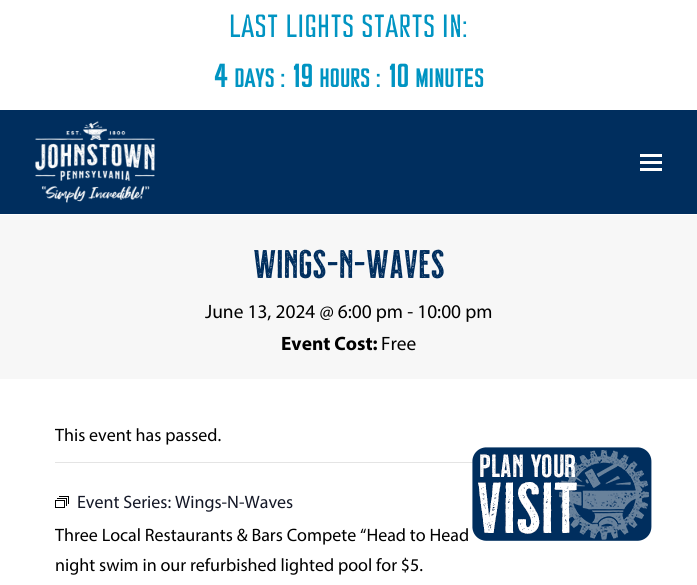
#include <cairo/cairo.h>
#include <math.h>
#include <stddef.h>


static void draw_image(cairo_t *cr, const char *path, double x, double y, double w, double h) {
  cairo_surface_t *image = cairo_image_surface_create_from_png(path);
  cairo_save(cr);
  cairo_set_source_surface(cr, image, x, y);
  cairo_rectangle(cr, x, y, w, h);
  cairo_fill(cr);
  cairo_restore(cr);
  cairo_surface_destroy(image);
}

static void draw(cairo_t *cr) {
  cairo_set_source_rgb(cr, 1, 1, 1);
  cairo_paint(cr);
  cairo_set_source_rgb(cr, 0, 46 / 255.0, 94 / 255.0);
  cairo_rectangle(cr, 0, 110, 697, 104);
  cairo_fill(cr);
  draw_image(cr, "images/1.png", 35, 121, 120, 82);
  cairo_set_source_rgb(cr, 1, 1, 1);
  cairo_rectangle(cr, 640, 161, 22, 3);
  cairo_fill(cr);
  cairo_rectangle(cr, 640, 154, 22, 3);
  cairo_fill(cr);
  cairo_rectangle(cr, 640, 168, 22, 3);
  cairo_fill(cr);
  cairo_set_source_rgb(cr, 247 / 255.0, 247 / 255.0, 247 / 255.0);
  cairo_rectangle(cr, 0, 215, 697, 164);
  cairo_fill(cr);
  cairo_set_source_rgb(cr, 228 / 255.0, 228 / 255.0, 228 / 255.0);
  cairo_rectangle(cr, 55, 462, 418, 1);
  cairo_fill(cr);
  draw_image(cr, "images/2.png", 55, 496, 14, 12);
  draw_image(cr, "images/3.png", 472, 447, 180, 94);
  cairo_select_font_face(cr, "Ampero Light", CAIRO_FONT_SLANT_NORMAL, CAIRO_FONT_WEIGHT_NORMAL);
  cairo_set_font_size(cr, 30);
  cairo_set_source_rgb(cr, 0, 148 / 255.0, 194 / 255.0);
  cairo_move_to(cr, 229, 37);
  cairo_show_text(cr, "LAST LIGHTS STARTS IN:");
  cairo_select_font_face(cr, "Ampero", CAIRO_FONT_SLANT_NORMAL, CAIRO_FONT_WEIGHT_BOLD);
  cairo_move_to(cr, 213, 87);
  cairo_show_text(cr, "4");
  cairo_set_font_size(cr, 24);
  cairo_move_to(cr, 234, 87);
  cairo_show_text(cr, "DAYS :");
  cairo_set_font_size(cr, 30);
  cairo_move_to(cr, 292, 87);
  cairo_show_text(cr, "19");
  cairo_set_font_size(cr, 24);
  cairo_move_to(cr, 319, 87);
  cairo_show_text(cr, "HOURS :");
  cairo_set_font_size(cr, 30);
  cairo_move_to(cr, 388, 87);
  cairo_show_text(cr, "10");
  cairo_set_font_size(cr, 24);
  cairo_move_to(cr, 415, 87);
  cairo_show_text(cr, "MINUTES");
  cairo_select_font_face(cr, "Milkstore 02", CAIRO_FONT_SLANT_NORMAL, CAIRO_FONT_WEIGHT_NORMAL);
  cairo_set_font_size(cr, 40);
  cairo_set_source_rgb(cr, 0, 46 / 255.0, 94 / 255.0);
  cairo_move_to(cr, 253, 278);
  cairo_show_text(cr, "WINGS-N-WAVES");
  cairo_select_font_face(cr, "Myriad", CAIRO_FONT_SLANT_NORMAL, CAIRO_FONT_WEIGHT_NORMAL);
  cairo_set_font_size(cr, 19.4);
  cairo_set_source_rgb(cr, 0, 0, 0);
  cairo_move_to(cr, 205, 318);
  cairo_show_text(cr, "June 13, 2024 @ 6:00 pm - 10:00 pm");
  cairo_select_font_face(cr, "Myriad", CAIRO_FONT_SLANT_NORMAL, CAIRO_FONT_WEIGHT_BOLD);
  cairo_move_to(cr, 281, 350);
  cairo_show_text(cr, "Event Cost:");
  cairo_select_font_face(cr, "Myriad", CAIRO_FONT_SLANT_NORMAL, CAIRO_FONT_WEIGHT_NORMAL);
  cairo_move_to(cr, 381, 350);
  cairo_show_text(cr, "Free");
  cairo_set_font_size(cr, 18);
  cairo_move_to(cr, 55, 441);
  cairo_show_text(cr, "This event has passed.");
  cairo_set_source_rgb(cr, 20 / 255.0, 24 / 255.0, 39 / 255.0);
  cairo_move_to(cr, 77, 508);
  cairo_show_text(cr, "Event Series: Wings-N-Waves");
  cairo_set_source_rgb(cr, 0, 0, 0);
  cairo_move_to(cr, 55, 541);
  cairo_show_text(cr, "Three Local Restaurants & Bars Compete “Head to Head");
  cairo_move_to(cr, 55, 571);
  cairo_show_text(cr, "night swim in our refurbished lighted pool for $5.");
}

int main(void) {
  cairo_surface_t *surface = cairo_image_surface_create(CAIRO_FORMAT_RGB24, 697, 585);
  cairo_t *cr = cairo_create(surface);
  cairo_font_options_t *options = cairo_font_options_create();
  cairo_font_options_set_hint_metrics(options, CAIRO_HINT_METRICS_OFF);
  cairo_font_options_set_hint_style(options, CAIRO_HINT_STYLE_NONE);
  cairo_set_font_options(cr, options);
  cairo_set_miter_limit(cr, 4);
  draw(cr);
  cairo_surface_write_to_png(surface, "out.png");
  cairo_font_options_destroy(options);
  cairo_destroy(cr);
  cairo_surface_destroy(surface);
  return 0;
}
